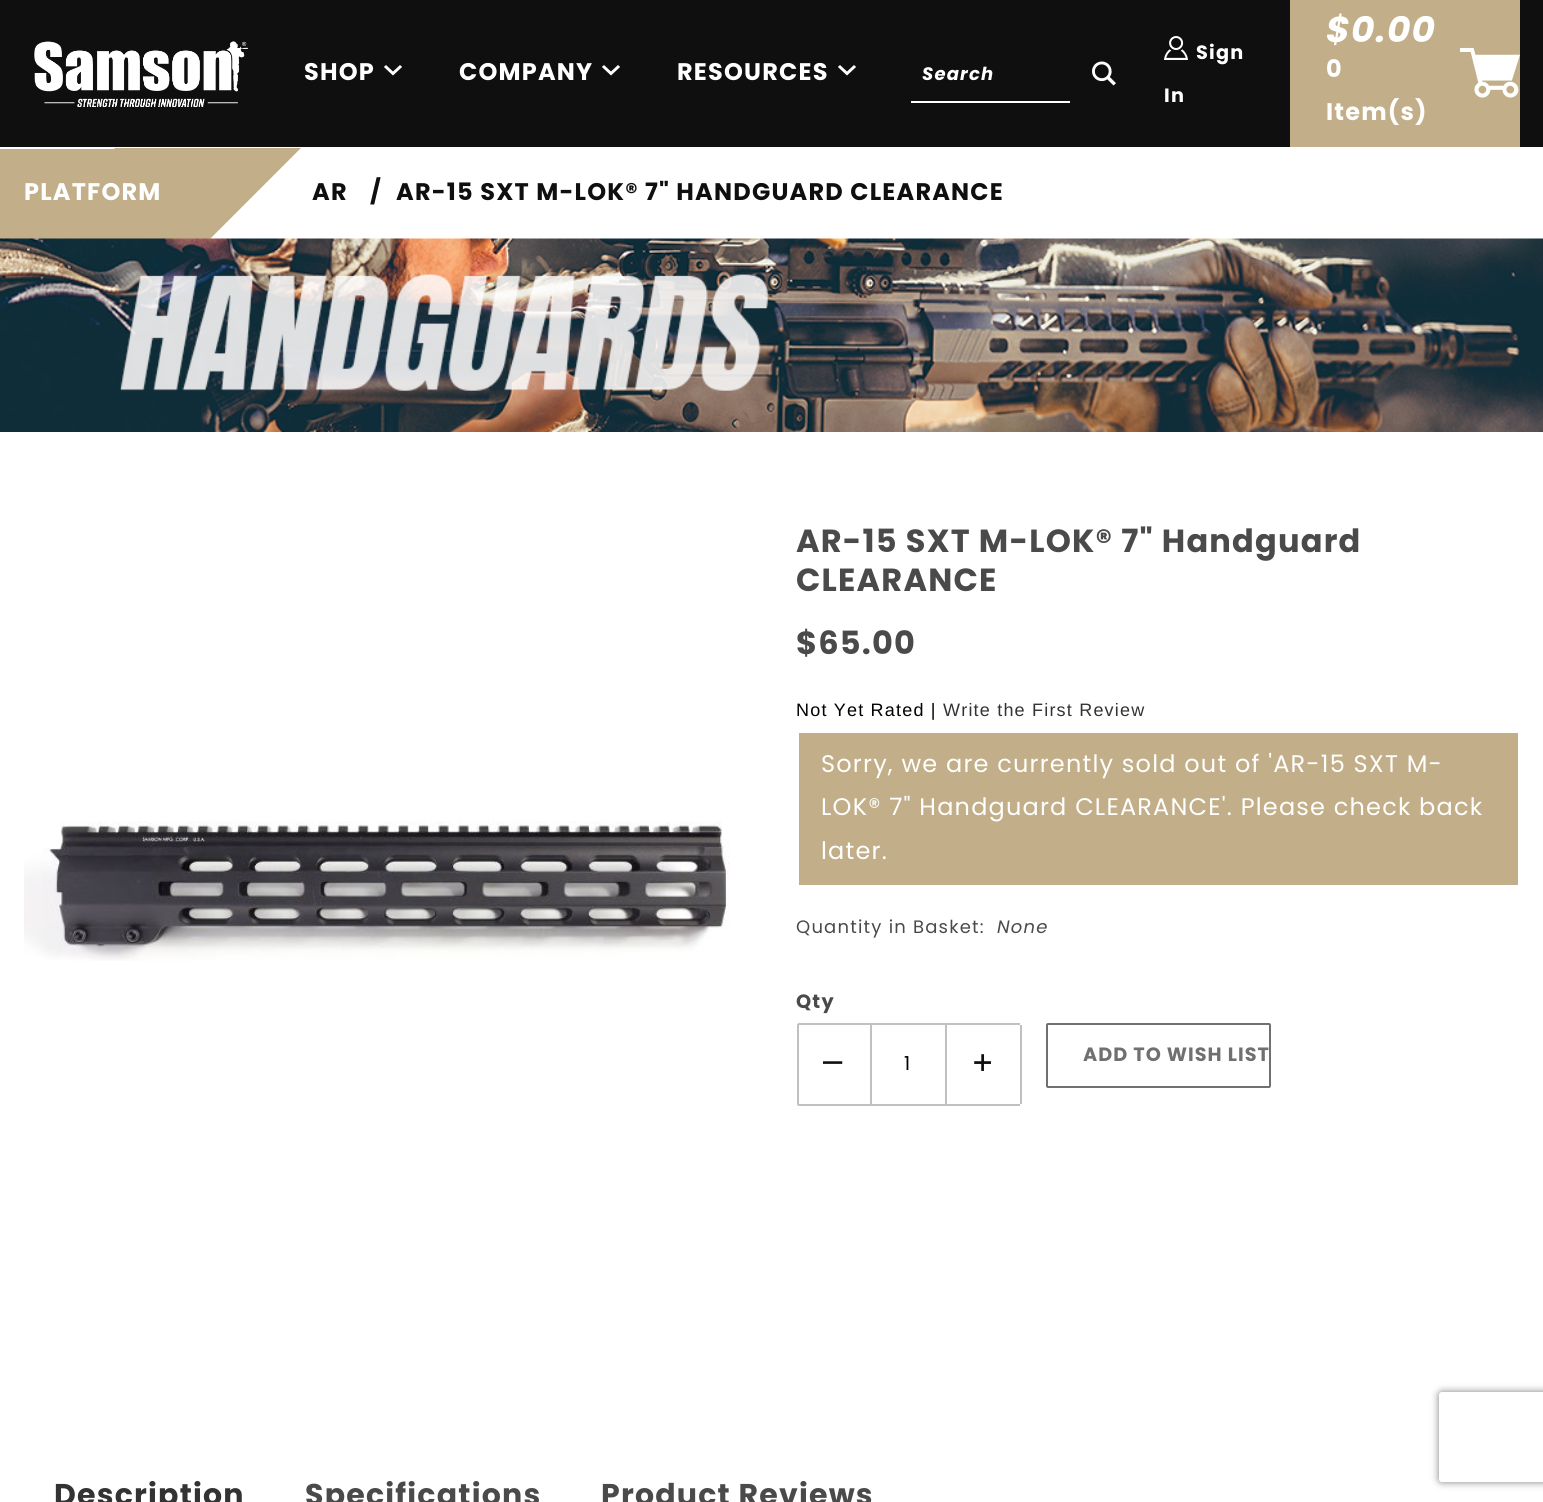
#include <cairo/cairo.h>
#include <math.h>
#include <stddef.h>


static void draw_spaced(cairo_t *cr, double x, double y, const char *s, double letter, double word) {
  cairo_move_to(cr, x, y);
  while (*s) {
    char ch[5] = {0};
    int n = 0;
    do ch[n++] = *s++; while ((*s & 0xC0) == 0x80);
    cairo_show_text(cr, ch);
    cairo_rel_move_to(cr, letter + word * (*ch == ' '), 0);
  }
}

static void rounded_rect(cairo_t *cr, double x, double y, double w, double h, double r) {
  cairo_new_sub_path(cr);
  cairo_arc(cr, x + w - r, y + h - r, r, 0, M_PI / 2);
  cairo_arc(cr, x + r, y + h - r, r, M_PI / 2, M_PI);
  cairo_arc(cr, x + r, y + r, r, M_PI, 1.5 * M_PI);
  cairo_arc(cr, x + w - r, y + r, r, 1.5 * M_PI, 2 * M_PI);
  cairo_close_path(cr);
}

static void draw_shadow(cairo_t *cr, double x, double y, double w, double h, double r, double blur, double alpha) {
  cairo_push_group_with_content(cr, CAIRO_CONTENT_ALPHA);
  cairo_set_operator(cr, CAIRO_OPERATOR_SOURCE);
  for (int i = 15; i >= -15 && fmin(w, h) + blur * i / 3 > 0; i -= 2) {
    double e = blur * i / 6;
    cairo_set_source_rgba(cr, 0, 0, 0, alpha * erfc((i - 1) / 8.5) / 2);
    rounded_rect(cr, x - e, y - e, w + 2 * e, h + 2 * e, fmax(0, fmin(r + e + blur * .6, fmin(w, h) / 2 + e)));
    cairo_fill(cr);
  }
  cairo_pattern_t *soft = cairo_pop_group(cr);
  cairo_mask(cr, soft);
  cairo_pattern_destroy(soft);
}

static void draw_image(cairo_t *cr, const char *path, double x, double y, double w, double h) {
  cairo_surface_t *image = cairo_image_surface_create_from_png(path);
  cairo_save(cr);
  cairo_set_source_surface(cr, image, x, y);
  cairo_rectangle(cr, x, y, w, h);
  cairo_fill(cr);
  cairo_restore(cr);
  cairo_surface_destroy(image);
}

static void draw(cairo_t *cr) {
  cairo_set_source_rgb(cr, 1, 1, 1);
  cairo_paint(cr);
  cairo_set_source_rgb(cr, 15 / 255.0, 15 / 255.0, 15 / 255.0);
  cairo_rectangle(cr, 0, 0, 1543, 147);
  cairo_fill(cr);
  draw_image(cr, "images/1.png", 34, 41, 214, 66);
  cairo_set_source_rgb(cr, 1, 1, 1);
  cairo_rectangle(cr, 911, 101, 159, 2);
  cairo_fill(cr);
  draw_image(cr, "images/2.png", 1092, 61, 24, 25);
  draw_image(cr, "images/3.png", 1164, 36, 24, 24);
  cairo_set_source_rgb(cr, 194 / 255.0, 175 / 255.0, 137 / 255.0);
  cairo_rectangle(cr, 1290, 0, 230, 147);
  cairo_fill(cr);
  cairo_rectangle(cr, 0, 149, 114, 90);
  cairo_fill(cr);
  cairo_new_path(cr);
  cairo_move_to(cr, 115, 148);
  cairo_line_to(cr, 301, 148);
  cairo_line_to(cr, 210, 239);
  cairo_line_to(cr, 24, 239);
  cairo_close_path(cr);
  cairo_fill(cr);
  draw_image(cr, "images/4.png", 0, 238, 1543, 194);
  draw_image(cr, "images/5.png", 24, 821, 706, 140);
  cairo_rectangle(cr, 799, 733, 719, 152);
  cairo_fill(cr);
  cairo_new_path(cr);
  cairo_move_to(cr, 799, 1024);
  cairo_line_to(cr, 871, 1024);
  cairo_line_to(cr, 871, 1105);
  cairo_line_to(cr, 799, 1105);
  cairo_curve_to(cr, 798.5, 1105, 798, 1104.5, 798, 1104);
  cairo_line_to(cr, 798, 1025);
  cairo_curve_to(cr, 798, 1024.5, 798.5, 1024, 799, 1024);
  cairo_close_path(cr);
  cairo_set_source_rgb(cr, 192 / 255.0, 192 / 255.0, 192 / 255.0);
  cairo_stroke(cr);
  cairo_rectangle(cr, 872, 1023, 148, 2);
  cairo_fill(cr);
  cairo_rectangle(cr, 945, 1023, 2, 83);
  cairo_fill(cr);
  cairo_rectangle(cr, 872, 1104, 148, 2);
  cairo_fill(cr);
  cairo_rectangle(cr, 1020, 1025, 2, 79);
  cairo_fill(cr);
  rounded_rect(cr, 1047, 1024, 223, 63, 1);
  cairo_set_source_rgb(cr, 112 / 255.0, 112 / 255.0, 112 / 255.0);
  cairo_stroke(cr);
  cairo_save(cr);
  cairo_set_fill_rule(cr, CAIRO_FILL_RULE_EVEN_ODD);
  cairo_new_path(cr);
  cairo_move_to(cr, 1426, 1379);
  cairo_line_to(cr, 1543, 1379);
  cairo_line_to(cr, 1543, 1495);
  cairo_line_to(cr, 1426, 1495);
  cairo_close_path(cr);
  cairo_move_to(cr, 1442, 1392);
  cairo_line_to(cr, 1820, 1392);
  cairo_curve_to(cr, 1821.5, 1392, 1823, 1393.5, 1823, 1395);
  cairo_line_to(cr, 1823, 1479);
  cairo_curve_to(cr, 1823, 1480.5, 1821.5, 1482, 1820, 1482);
  cairo_line_to(cr, 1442, 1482);
  cairo_curve_to(cr, 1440.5, 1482, 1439, 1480.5, 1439, 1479);
  cairo_line_to(cr, 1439, 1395);
  cairo_curve_to(cr, 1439, 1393.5, 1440.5, 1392, 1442, 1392);
  cairo_close_path(cr);
  cairo_clip(cr);
  cairo_set_source_rgb(cr, 128 / 255.0, 128 / 255.0, 128 / 255.0);
  draw_shadow(cr, 1439, 1392, 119, 90, 3, 4, 1);
  cairo_restore(cr);
  cairo_select_font_face(cr, "Poppins", CAIRO_FONT_SLANT_NORMAL, CAIRO_FONT_WEIGHT_BOLD);
  cairo_set_font_size(cr, 24);
  cairo_set_source_rgb(cr, 1, 1, 1);
  draw_spaced(cr, 304, 80, "SHOP", 1.2, 0);
  cairo_select_font_face(cr, "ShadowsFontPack", CAIRO_FONT_SLANT_NORMAL, CAIRO_FONT_WEIGHT_NORMAL);
  draw_spaced(cr, 381, 80, "1", 1.2, 0);
  cairo_select_font_face(cr, "Poppins", CAIRO_FONT_SLANT_NORMAL, CAIRO_FONT_WEIGHT_BOLD);
  draw_spaced(cr, 459, 80, "COMPANY", 1.2, 0);
  cairo_select_font_face(cr, "ShadowsFontPack", CAIRO_FONT_SLANT_NORMAL, CAIRO_FONT_WEIGHT_NORMAL);
  draw_spaced(cr, 599, 80, "1", 1.2, 0);
  cairo_select_font_face(cr, "Poppins", CAIRO_FONT_SLANT_NORMAL, CAIRO_FONT_WEIGHT_BOLD);
  draw_spaced(cr, 677, 80, "RESOURCES", 1.2, 0);
  cairo_select_font_face(cr, "ShadowsFontPack", CAIRO_FONT_SLANT_NORMAL, CAIRO_FONT_WEIGHT_NORMAL);
  draw_spaced(cr, 835, 80, "1", 1.2, 0);
  cairo_select_font_face(cr, "Poppins", CAIRO_FONT_SLANT_ITALIC, CAIRO_FONT_WEIGHT_BOLD);
  cairo_set_font_size(cr, 18);
  draw_spaced(cr, 922, 80, "Search", 1.2, 0);
  cairo_select_font_face(cr, "Poppins", CAIRO_FONT_SLANT_NORMAL, CAIRO_FONT_WEIGHT_BOLD);
  cairo_set_font_size(cr, 19.25);
  draw_spaced(cr, 1196, 59, "Sign", 1.2, 0);
  draw_spaced(cr, 1164, 102, "In", 1.2, 0);
  cairo_select_font_face(cr, "Poppins", CAIRO_FONT_SLANT_ITALIC, CAIRO_FONT_WEIGHT_BOLD);
  cairo_set_font_size(cr, 36);
  draw_spaced(cr, 1326, 42, "$0.00", 1.2, 0);
  cairo_select_font_face(cr, "Poppins", CAIRO_FONT_SLANT_NORMAL, CAIRO_FONT_WEIGHT_BOLD);
  cairo_set_font_size(cr, 24);
  draw_spaced(cr, 1326, 77, "0", 1.2, 0);
  draw_spaced(cr, 1326, 120, "Item(s)", 1.2, 0);
  cairo_select_font_face(cr, "ShadowsFontPack", CAIRO_FONT_SLANT_NORMAL, CAIRO_FONT_WEIGHT_NORMAL);
  cairo_set_font_size(cr, 60);
  draw_spaced(cr, 1460, 99, "[", 1.2, 0);
  cairo_select_font_face(cr, "Poppins", CAIRO_FONT_SLANT_NORMAL, CAIRO_FONT_WEIGHT_BOLD);
  cairo_set_font_size(cr, 24);
  draw_spaced(cr, 24, 200, "PLATFORM", 1.2, 0);
  cairo_set_source_rgb(cr, 15 / 255.0, 15 / 255.0, 15 / 255.0);
  draw_spaced(cr, 312, 200, "AR", 1.2, 0);
  draw_spaced(cr, 370, 200, "/", 1.2, 0);
  draw_spaced(cr, 396, 200, "AR-15 SXT M-LOK® 7\" HANDGUARD CLEARANCE", 1.2, 0);
  cairo_set_font_size(cr, 32);
  cairo_set_source_rgb(cr, 74 / 255.0, 74 / 255.0, 74 / 255.0);
  draw_spaced(cr, 796, 552, "AR-15 SXT M-LOK® 7\" Handguard", 1.2, 0);
  draw_spaced(cr, 796, 591, "CLEARANCE", 1.2, 0);
  draw_spaced(cr, 796, 654, "$65.00", 1.2, 0);
  cairo_select_font_face(cr, "Liberation Sans", CAIRO_FONT_SLANT_NORMAL, CAIRO_FONT_WEIGHT_NORMAL);
  cairo_set_font_size(cr, 18);
  cairo_set_source_rgb(cr, 0, 0, 0);
  draw_spaced(cr, 796, 716, "Not Yet Rated |", 1.2, 0);
  cairo_set_source_rgb(cr, 51 / 255.0, 51 / 255.0, 51 / 255.0);
  draw_spaced(cr, 943, 716, "Write the First Review", 1.2, 0);
  cairo_select_font_face(cr, "Poppins", CAIRO_FONT_SLANT_NORMAL, CAIRO_FONT_WEIGHT_NORMAL);
  cairo_set_font_size(cr, 24);
  cairo_set_source_rgb(cr, 1, 1, 1);
  draw_spaced(cr, 821, 772, "Sorry, we are currently sold out of 'AR-15 SXT M-", 1.2, 0);
  draw_spaced(cr, 821, 815, "LOK® 7\" Handguard CLEARANCE'. Please check back", 1.2, 0);
  draw_spaced(cr, 821, 859, "later.", 1.2, 0);
  cairo_set_font_size(cr, 18);
  cairo_set_source_rgb(cr, 74 / 255.0, 74 / 255.0, 74 / 255.0);
  draw_spaced(cr, 796, 933, "Quantity in Basket:", 1.2, 0);
  cairo_select_font_face(cr, "Poppins", CAIRO_FONT_SLANT_ITALIC, CAIRO_FONT_WEIGHT_NORMAL);
  draw_spaced(cr, 997, 933, "None", 1.2, 0);
  cairo_select_font_face(cr, "Poppins", CAIRO_FONT_SLANT_NORMAL, CAIRO_FONT_WEIGHT_BOLD);
  cairo_set_font_size(cr, 19.25);
  draw_spaced(cr, 796, 1008, "Qty", 1.2, 0);
  cairo_select_font_face(cr, "ShadowsFontPack", CAIRO_FONT_SLANT_NORMAL, CAIRO_FONT_WEIGHT_NORMAL);
  cairo_set_source_rgb(cr, 15 / 255.0, 15 / 255.0, 15 / 255.0);
  draw_spaced(cr, 823, 1071, "<", 1, 0);
  cairo_select_font_face(cr, "Poppins", CAIRO_FONT_SLANT_NORMAL, CAIRO_FONT_WEIGHT_NORMAL);
  cairo_set_source_rgb(cr, 0, 0, 0);
  draw_spaced(cr, 904, 1070, "1", 1, 0);
  cairo_select_font_face(cr, "ShadowsFontPack", CAIRO_FONT_SLANT_NORMAL, CAIRO_FONT_WEIGHT_NORMAL);
  cairo_set_source_rgb(cr, 15 / 255.0, 15 / 255.0, 15 / 255.0);
  draw_spaced(cr, 973, 1071, "=", 1, 0);
  cairo_select_font_face(cr, "Poppins", CAIRO_FONT_SLANT_NORMAL, CAIRO_FONT_WEIGHT_BOLD);
  cairo_set_source_rgb(cr, 112 / 255.0, 112 / 255.0, 112 / 255.0);
  draw_spaced(cr, 1083, 1061, "ADD TO WISH LIST", 1, 0);
  cairo_set_font_size(cr, 30);
  cairo_set_source_rgb(cr, 51 / 255.0, 51 / 255.0, 51 / 255.0);
  draw_spaced(cr, 54, 1505, "Description", 1.2, 0);
  cairo_set_source_rgb(cr, 74 / 255.0, 74 / 255.0, 74 / 255.0);
  draw_spaced(cr, 305, 1505, "Specifications", 1.2, 0);
  draw_spaced(cr, 601, 1505, "Product Reviews", 1.2, 0);
}

int main(void) {
  cairo_surface_t *surface = cairo_image_surface_create(CAIRO_FORMAT_RGB24, 1543, 1502);
  cairo_t *cr = cairo_create(surface);
  cairo_font_options_t *options = cairo_font_options_create();
  cairo_font_options_set_hint_metrics(options, CAIRO_HINT_METRICS_OFF);
  cairo_font_options_set_hint_style(options, CAIRO_HINT_STYLE_NONE);
  cairo_set_font_options(cr, options);
  cairo_set_miter_limit(cr, 4);
  draw(cr);
  cairo_surface_write_to_png(surface, "out.png");
  cairo_font_options_destroy(options);
  cairo_destroy(cr);
  cairo_surface_destroy(surface);
  return 0;
}
